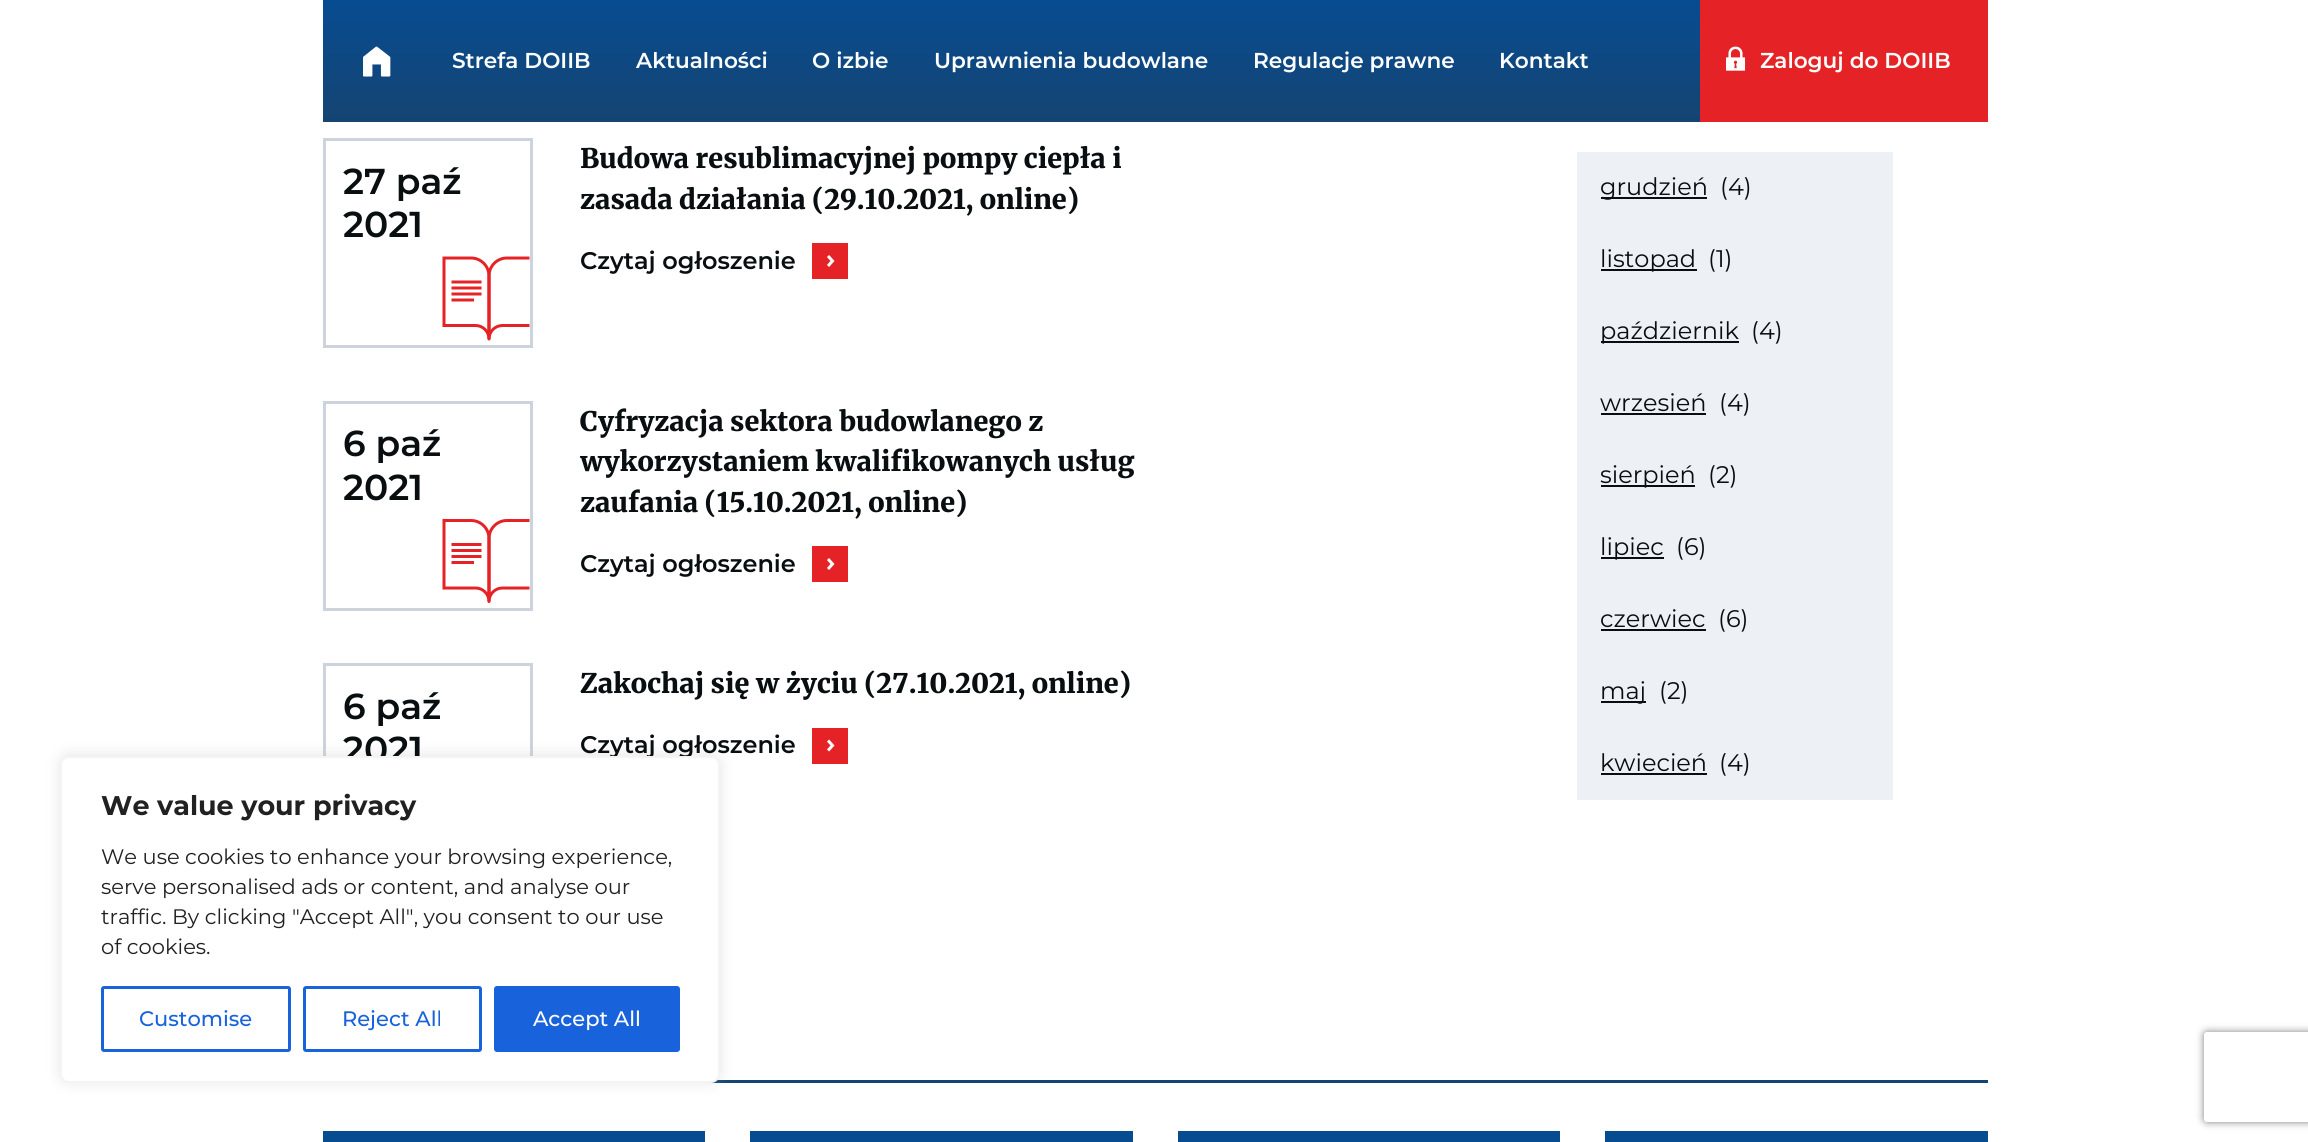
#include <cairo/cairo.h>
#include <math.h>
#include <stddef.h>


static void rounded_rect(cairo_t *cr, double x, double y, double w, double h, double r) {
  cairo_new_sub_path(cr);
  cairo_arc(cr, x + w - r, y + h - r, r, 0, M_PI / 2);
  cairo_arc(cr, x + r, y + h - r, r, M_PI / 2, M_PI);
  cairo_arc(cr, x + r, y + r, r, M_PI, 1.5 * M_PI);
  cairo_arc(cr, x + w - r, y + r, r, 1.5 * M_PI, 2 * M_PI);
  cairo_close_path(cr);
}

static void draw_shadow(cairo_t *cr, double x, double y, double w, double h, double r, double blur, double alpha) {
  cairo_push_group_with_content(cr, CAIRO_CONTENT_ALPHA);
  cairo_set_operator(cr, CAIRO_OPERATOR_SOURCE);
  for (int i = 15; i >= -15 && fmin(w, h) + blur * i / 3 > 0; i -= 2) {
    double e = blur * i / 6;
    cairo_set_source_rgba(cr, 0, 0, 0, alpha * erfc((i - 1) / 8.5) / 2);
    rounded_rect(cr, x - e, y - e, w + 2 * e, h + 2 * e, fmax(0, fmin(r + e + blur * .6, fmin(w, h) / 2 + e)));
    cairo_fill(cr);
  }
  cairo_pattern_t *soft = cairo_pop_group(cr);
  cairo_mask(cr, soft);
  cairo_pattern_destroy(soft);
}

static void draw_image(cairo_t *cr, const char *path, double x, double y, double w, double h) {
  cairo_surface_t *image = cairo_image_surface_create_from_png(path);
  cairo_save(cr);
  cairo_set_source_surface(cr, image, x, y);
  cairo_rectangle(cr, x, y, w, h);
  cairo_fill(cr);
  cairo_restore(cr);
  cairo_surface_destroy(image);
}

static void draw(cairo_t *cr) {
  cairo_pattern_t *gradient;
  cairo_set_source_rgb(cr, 1, 1, 1);
  cairo_paint(cr);
  gradient = cairo_pattern_create_linear(1155, 0, 1155, 122);
  cairo_pattern_add_color_stop_rgba(gradient, 0, 7 / 255.0, 76 / 255.0, 145 / 255.0, 1);
  cairo_pattern_add_color_stop_rgba(gradient, 1, 21 / 255.0, 68 / 255.0, 114 / 255.0, 1);
  cairo_set_source(cr, gradient);
  cairo_pattern_destroy(gradient);
  cairo_rectangle(cr, 323, 0, 1377, 122);
  cairo_fill(cr);
  draw_image(cr, "images/1.png", 363, 46, 28, 31);
  cairo_set_source_rgb(cr, 229 / 255.0, 35 / 255.0, 38 / 255.0);
  cairo_rectangle(cr, 1700, 0, 288, 122);
  cairo_fill(cr);
  draw_image(cr, "images/2.png", 1726, 46, 20, 25);
  cairo_rectangle(cr, 324.5, 139.5, 207, 207);
  cairo_set_source_rgb(cr, 205 / 255.0, 211 / 255.0, 221 / 255.0);
  cairo_set_line_width(cr, 3);
  cairo_stroke(cr);
  draw_image(cr, "images/3.png", 442, 256, 88, 85);
  cairo_set_source_rgb(cr, 229 / 255.0, 35 / 255.0, 38 / 255.0);
  cairo_rectangle(cr, 812, 243, 36, 36);
  cairo_fill(cr);
  cairo_new_path(cr);
  cairo_move_to(cr, 828, 266);
  cairo_line_to(cr, 832.5, 261);
  cairo_line_to(cr, 828, 256);
  cairo_set_source_rgb(cr, 1, 1, 1);
  cairo_stroke(cr);
  cairo_rectangle(cr, 324.5, 402.5, 207, 207);
  cairo_set_source_rgb(cr, 205 / 255.0, 211 / 255.0, 221 / 255.0);
  cairo_stroke(cr);
  draw_image(cr, "images/4.png", 442, 519, 88, 84);
  cairo_set_source_rgb(cr, 229 / 255.0, 35 / 255.0, 38 / 255.0);
  cairo_rectangle(cr, 812, 546, 36, 36);
  cairo_fill(cr);
  cairo_new_path(cr);
  cairo_move_to(cr, 828, 569);
  cairo_line_to(cr, 832.5, 564);
  cairo_line_to(cr, 828, 559);
  cairo_set_source_rgb(cr, 1, 1, 1);
  cairo_stroke(cr);
  cairo_rectangle(cr, 324.5, 664.5, 207, 207);
  cairo_set_source_rgb(cr, 205 / 255.0, 211 / 255.0, 221 / 255.0);
  cairo_stroke(cr);
  cairo_set_source_rgb(cr, 229 / 255.0, 35 / 255.0, 38 / 255.0);
  cairo_rectangle(cr, 812, 728, 36, 36);
  cairo_fill(cr);
  cairo_new_path(cr);
  cairo_move_to(cr, 828, 750.5);
  cairo_line_to(cr, 832.5, 745.5);
  cairo_line_to(cr, 828, 740.5);
  cairo_set_source_rgb(cr, 1, 1, 1);
  cairo_stroke(cr);
  cairo_set_source_rgb(cr, 237 / 255.0, 240 / 255.0, 244 / 255.0);
  cairo_rectangle(cr, 1577, 152, 316, 648);
  cairo_fill(cr);
  cairo_set_source_rgb(cr, 9 / 255.0, 15 / 255.0, 17 / 255.0);
  cairo_rectangle(cr, 1601, 197, 106, 2);
  cairo_fill(cr);
  cairo_rectangle(cr, 1601, 269, 96, 2);
  cairo_fill(cr);
  cairo_rectangle(cr, 1601, 341, 138, 2);
  cairo_fill(cr);
  cairo_rectangle(cr, 1601, 413, 105, 2);
  cairo_fill(cr);
  cairo_rectangle(cr, 1601, 485, 94, 2);
  cairo_fill(cr);
  cairo_rectangle(cr, 1601, 557, 63, 2);
  cairo_fill(cr);
  cairo_rectangle(cr, 1601, 629, 105, 2);
  cairo_fill(cr);
  cairo_rectangle(cr, 1601, 701, 45, 2);
  cairo_fill(cr);
  cairo_rectangle(cr, 1601, 773, 106, 2);
  cairo_fill(cr);
  cairo_set_source_rgb(cr, 21 / 255.0, 68 / 255.0, 114 / 255.0);
  cairo_rectangle(cr, 711, 1080, 1277, 3);
  cairo_fill(cr);
  cairo_set_source_rgb(cr, 172 / 255.0, 171 / 255.0, 171 / 255.0);
  draw_shadow(cr, 60, 755, 660, 327, 9, 7.5, 0.3);
  gradient = cairo_pattern_create_linear(514, 1131, 514, 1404);
  cairo_pattern_add_color_stop_rgba(gradient, 0, 7 / 255.0, 76 / 255.0, 145 / 255.0, 1);
  cairo_pattern_add_color_stop_rgba(gradient, 1, 21 / 255.0, 68 / 255.0, 114 / 255.0, 1);
  cairo_set_source(cr, gradient);
  cairo_pattern_destroy(gradient);
  cairo_rectangle(cr, 323, 1131, 382, 11);
  cairo_fill(cr);
  gradient = cairo_pattern_create_linear(941, 1131, 941, 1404);
  cairo_pattern_add_color_stop_rgba(gradient, 0, 7 / 255.0, 76 / 255.0, 145 / 255.0, 1);
  cairo_pattern_add_color_stop_rgba(gradient, 1, 21 / 255.0, 68 / 255.0, 114 / 255.0, 1);
  cairo_set_source(cr, gradient);
  cairo_pattern_destroy(gradient);
  cairo_rectangle(cr, 750, 1131, 383, 11);
  cairo_fill(cr);
  gradient = cairo_pattern_create_linear(1369, 1131, 1369, 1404);
  cairo_pattern_add_color_stop_rgba(gradient, 0, 7 / 255.0, 76 / 255.0, 145 / 255.0, 1);
  cairo_pattern_add_color_stop_rgba(gradient, 1, 21 / 255.0, 68 / 255.0, 114 / 255.0, 1);
  cairo_set_source(cr, gradient);
  cairo_pattern_destroy(gradient);
  cairo_rectangle(cr, 1178, 1131, 382, 11);
  cairo_fill(cr);
  gradient = cairo_pattern_create_linear(1796, 1131, 1796, 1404);
  cairo_pattern_add_color_stop_rgba(gradient, 0, 7 / 255.0, 76 / 255.0, 145 / 255.0, 1);
  cairo_pattern_add_color_stop_rgba(gradient, 1, 21 / 255.0, 68 / 255.0, 114 / 255.0, 1);
  cairo_set_source(cr, gradient);
  cairo_pattern_destroy(gradient);
  cairo_rectangle(cr, 1605, 1131, 383, 11);
  cairo_fill(cr);
  cairo_save(cr);
  cairo_set_fill_rule(cr, CAIRO_FILL_RULE_EVEN_ODD);
  cairo_new_path(cr);
  cairo_move_to(cr, 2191, 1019);
  cairo_line_to(cr, 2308, 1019);
  cairo_line_to(cr, 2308, 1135);
  cairo_line_to(cr, 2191, 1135);
  cairo_close_path(cr);
  cairo_move_to(cr, 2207, 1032);
  cairo_line_to(cr, 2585, 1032);
  cairo_curve_to(cr, 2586.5, 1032, 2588, 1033.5, 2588, 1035);
  cairo_line_to(cr, 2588, 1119);
  cairo_curve_to(cr, 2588, 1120.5, 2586.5, 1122, 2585, 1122);
  cairo_line_to(cr, 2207, 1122);
  cairo_curve_to(cr, 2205.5, 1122, 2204, 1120.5, 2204, 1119);
  cairo_line_to(cr, 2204, 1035);
  cairo_curve_to(cr, 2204, 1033.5, 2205.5, 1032, 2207, 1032);
  cairo_close_path(cr);
  cairo_clip(cr);
  cairo_set_source_rgb(cr, 128 / 255.0, 128 / 255.0, 128 / 255.0);
  draw_shadow(cr, 2204, 1032, 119, 90, 3, 4, 1);
  cairo_restore(cr);
  cairo_select_font_face(cr, "Montserrat SemiBold", CAIRO_FONT_SLANT_NORMAL, CAIRO_FONT_WEIGHT_NORMAL);
  cairo_set_font_size(cr, 21.6);
  cairo_set_source_rgb(cr, 1, 1, 1);
  cairo_move_to(cr, 452, 68);
  cairo_show_text(cr, "Strefa DOIIB");
  cairo_move_to(cr, 636, 68);
  cairo_show_text(cr, "Aktualności");
  cairo_move_to(cr, 812, 68);
  cairo_show_text(cr, "O izbie");
  cairo_move_to(cr, 934, 68);
  cairo_show_text(cr, "Uprawnienia budowlane");
  cairo_move_to(cr, 1253, 68);
  cairo_show_text(cr, "Regulacje prawne");
  cairo_move_to(cr, 1499, 68);
  cairo_show_text(cr, "Kontakt");
  cairo_move_to(cr, 1760, 68);
  cairo_show_text(cr, "Zaloguj do DOIIB");
  cairo_set_font_size(cr, 36);
  cairo_set_source_rgb(cr, 9 / 255.0, 15 / 255.0, 17 / 255.0);
  cairo_move_to(cr, 343, 194);
  cairo_show_text(cr, "27 paź");
  cairo_move_to(cr, 343, 237);
  cairo_show_text(cr, "2021");
  cairo_select_font_face(cr, "Merriweather Black", CAIRO_FONT_SLANT_NORMAL, CAIRO_FONT_WEIGHT_NORMAL);
  cairo_set_font_size(cr, 27);
  cairo_move_to(cr, 580, 168);
  cairo_show_text(cr, "Budowa resublimacyjnej pompy ciepła i");
  cairo_move_to(cr, 580, 209);
  cairo_show_text(cr, "zasada działania (29.10.2021, online)");
  cairo_select_font_face(cr, "Montserrat SemiBold", CAIRO_FONT_SLANT_NORMAL, CAIRO_FONT_WEIGHT_NORMAL);
  cairo_set_font_size(cr, 24);
  cairo_move_to(cr, 580, 269);
  cairo_show_text(cr, "Czytaj ogłoszenie");
  cairo_set_font_size(cr, 36);
  cairo_move_to(cr, 343, 456);
  cairo_show_text(cr, "6 paź");
  cairo_move_to(cr, 343, 500);
  cairo_show_text(cr, "2021");
  cairo_select_font_face(cr, "Merriweather Black", CAIRO_FONT_SLANT_NORMAL, CAIRO_FONT_WEIGHT_NORMAL);
  cairo_set_font_size(cr, 27);
  cairo_move_to(cr, 580, 431);
  cairo_show_text(cr, "Cyfryzacja sektora budowlanego z");
  cairo_move_to(cr, 580, 471);
  cairo_show_text(cr, "wykorzystaniem kwalifikowanych usług");
  cairo_move_to(cr, 580, 512);
  cairo_show_text(cr, "zaufania (15.10.2021, online)");
  cairo_select_font_face(cr, "Montserrat SemiBold", CAIRO_FONT_SLANT_NORMAL, CAIRO_FONT_WEIGHT_NORMAL);
  cairo_set_font_size(cr, 24);
  cairo_move_to(cr, 580, 572);
  cairo_show_text(cr, "Czytaj ogłoszenie");
  cairo_set_font_size(cr, 36);
  cairo_move_to(cr, 343, 719);
  cairo_show_text(cr, "6 paź");
  cairo_move_to(cr, 343, 762);
  cairo_show_text(cr, "2021");
  cairo_select_font_face(cr, "Merriweather Black", CAIRO_FONT_SLANT_NORMAL, CAIRO_FONT_WEIGHT_NORMAL);
  cairo_set_font_size(cr, 27);
  cairo_move_to(cr, 580, 693);
  cairo_show_text(cr, "Zakochaj się w życiu (27.10.2021, online)");
  cairo_select_font_face(cr, "Montserrat SemiBold", CAIRO_FONT_SLANT_NORMAL, CAIRO_FONT_WEIGHT_NORMAL);
  cairo_set_font_size(cr, 24);
  cairo_move_to(cr, 580, 753);
  cairo_show_text(cr, "Czytaj ogłoszenie");
  cairo_select_font_face(cr, "Montserrat", CAIRO_FONT_SLANT_NORMAL, CAIRO_FONT_WEIGHT_NORMAL);
  cairo_move_to(cr, 1600, 195);
  cairo_show_text(cr, "grudzień");
  cairo_move_to(cr, 1720, 195);
  cairo_show_text(cr, "(4)");
  cairo_move_to(cr, 1600, 267);
  cairo_show_text(cr, "listopad");
  cairo_move_to(cr, 1708, 267);
  cairo_show_text(cr, "(1)");
  cairo_move_to(cr, 1600, 339);
  cairo_show_text(cr, "październik");
  cairo_move_to(cr, 1751, 339);
  cairo_show_text(cr, "(4)");
  cairo_move_to(cr, 1600, 411);
  cairo_show_text(cr, "wrzesień");
  cairo_move_to(cr, 1719, 411);
  cairo_show_text(cr, "(4)");
  cairo_move_to(cr, 1600, 483);
  cairo_show_text(cr, "sierpień");
  cairo_move_to(cr, 1708, 483);
  cairo_show_text(cr, "(2)");
  cairo_move_to(cr, 1600, 555);
  cairo_show_text(cr, "lipiec");
  cairo_move_to(cr, 1676, 555);
  cairo_show_text(cr, "(6)");
  cairo_move_to(cr, 1600, 627);
  cairo_show_text(cr, "czerwiec");
  cairo_move_to(cr, 1718, 627);
  cairo_show_text(cr, "(6)");
  cairo_move_to(cr, 1600, 699);
  cairo_show_text(cr, "maj");
  cairo_move_to(cr, 1659, 699);
  cairo_show_text(cr, "(2)");
  cairo_move_to(cr, 1600, 771);
  cairo_show_text(cr, "kwiecień");
  cairo_move_to(cr, 1719, 771);
  cairo_show_text(cr, "(4)");
  cairo_set_source_rgb(cr, 1, 1, 1);
  rounded_rect(cr, 61, 757, 658, 325, 8);
  cairo_fill_preserve(cr);
  cairo_set_source_rgb(cr, 244 / 255.0, 244 / 255.0, 244 / 255.0);
  cairo_set_line_width(cr, 2);
  cairo_stroke(cr);
  cairo_select_font_face(cr, "Montserrat", CAIRO_FONT_SLANT_NORMAL, CAIRO_FONT_WEIGHT_BOLD);
  cairo_set_font_size(cr, 27);
  cairo_set_source_rgb(cr, 33 / 255.0, 33 / 255.0, 33 / 255.0);
  cairo_move_to(cr, 101, 815);
  cairo_show_text(cr, "We value your privacy");
  cairo_select_font_face(cr, "Montserrat", CAIRO_FONT_SLANT_NORMAL, CAIRO_FONT_WEIGHT_NORMAL);
  cairo_set_font_size(cr, 21);
  cairo_move_to(cr, 101, 864);
  cairo_show_text(cr, "We use cookies to enhance your browsing experience,");
  cairo_move_to(cr, 101, 894);
  cairo_show_text(cr, "serve personalised ads or content, and analyse our");
  cairo_move_to(cr, 101, 924);
  cairo_show_text(cr, "traffic. By clicking \"Accept All\", you consent to our use");
  cairo_move_to(cr, 101, 954);
  cairo_show_text(cr, "of cookies.");
  rounded_rect(cr, 102.5, 987.5, 187, 63, 1.5);
  cairo_set_source_rgb(cr, 24 / 255.0, 99 / 255.0, 220 / 255.0);
  cairo_set_line_width(cr, 3);
  cairo_stroke(cr);
  cairo_select_font_face(cr, "Montserrat Medium", CAIRO_FONT_SLANT_NORMAL, CAIRO_FONT_WEIGHT_NORMAL);
  cairo_move_to(cr, 139, 1026);
  cairo_show_text(cr, "Customise");
  rounded_rect(cr, 304.5, 987.5, 176, 63, 1.5);
  cairo_stroke(cr);
  cairo_move_to(cr, 342, 1026);
  cairo_show_text(cr, "Reject All");
  rounded_rect(cr, 495.5, 987.5, 183, 63, 1.5);
  cairo_fill_preserve(cr);
  cairo_stroke(cr);
  cairo_set_source_rgb(cr, 1, 1, 1);
  cairo_move_to(cr, 533, 1026);
  cairo_show_text(cr, "Accept All");
}

int main(void) {
  cairo_surface_t *surface = cairo_image_surface_create(CAIRO_FORMAT_RGB24, 2308, 1142);
  cairo_t *cr = cairo_create(surface);
  cairo_font_options_t *options = cairo_font_options_create();
  cairo_font_options_set_hint_metrics(options, CAIRO_HINT_METRICS_OFF);
  cairo_font_options_set_hint_style(options, CAIRO_HINT_STYLE_NONE);
  cairo_set_font_options(cr, options);
  cairo_set_miter_limit(cr, 4);
  draw(cr);
  cairo_surface_write_to_png(surface, "out.png");
  cairo_font_options_destroy(options);
  cairo_destroy(cr);
  cairo_surface_destroy(surface);
  return 0;
}
